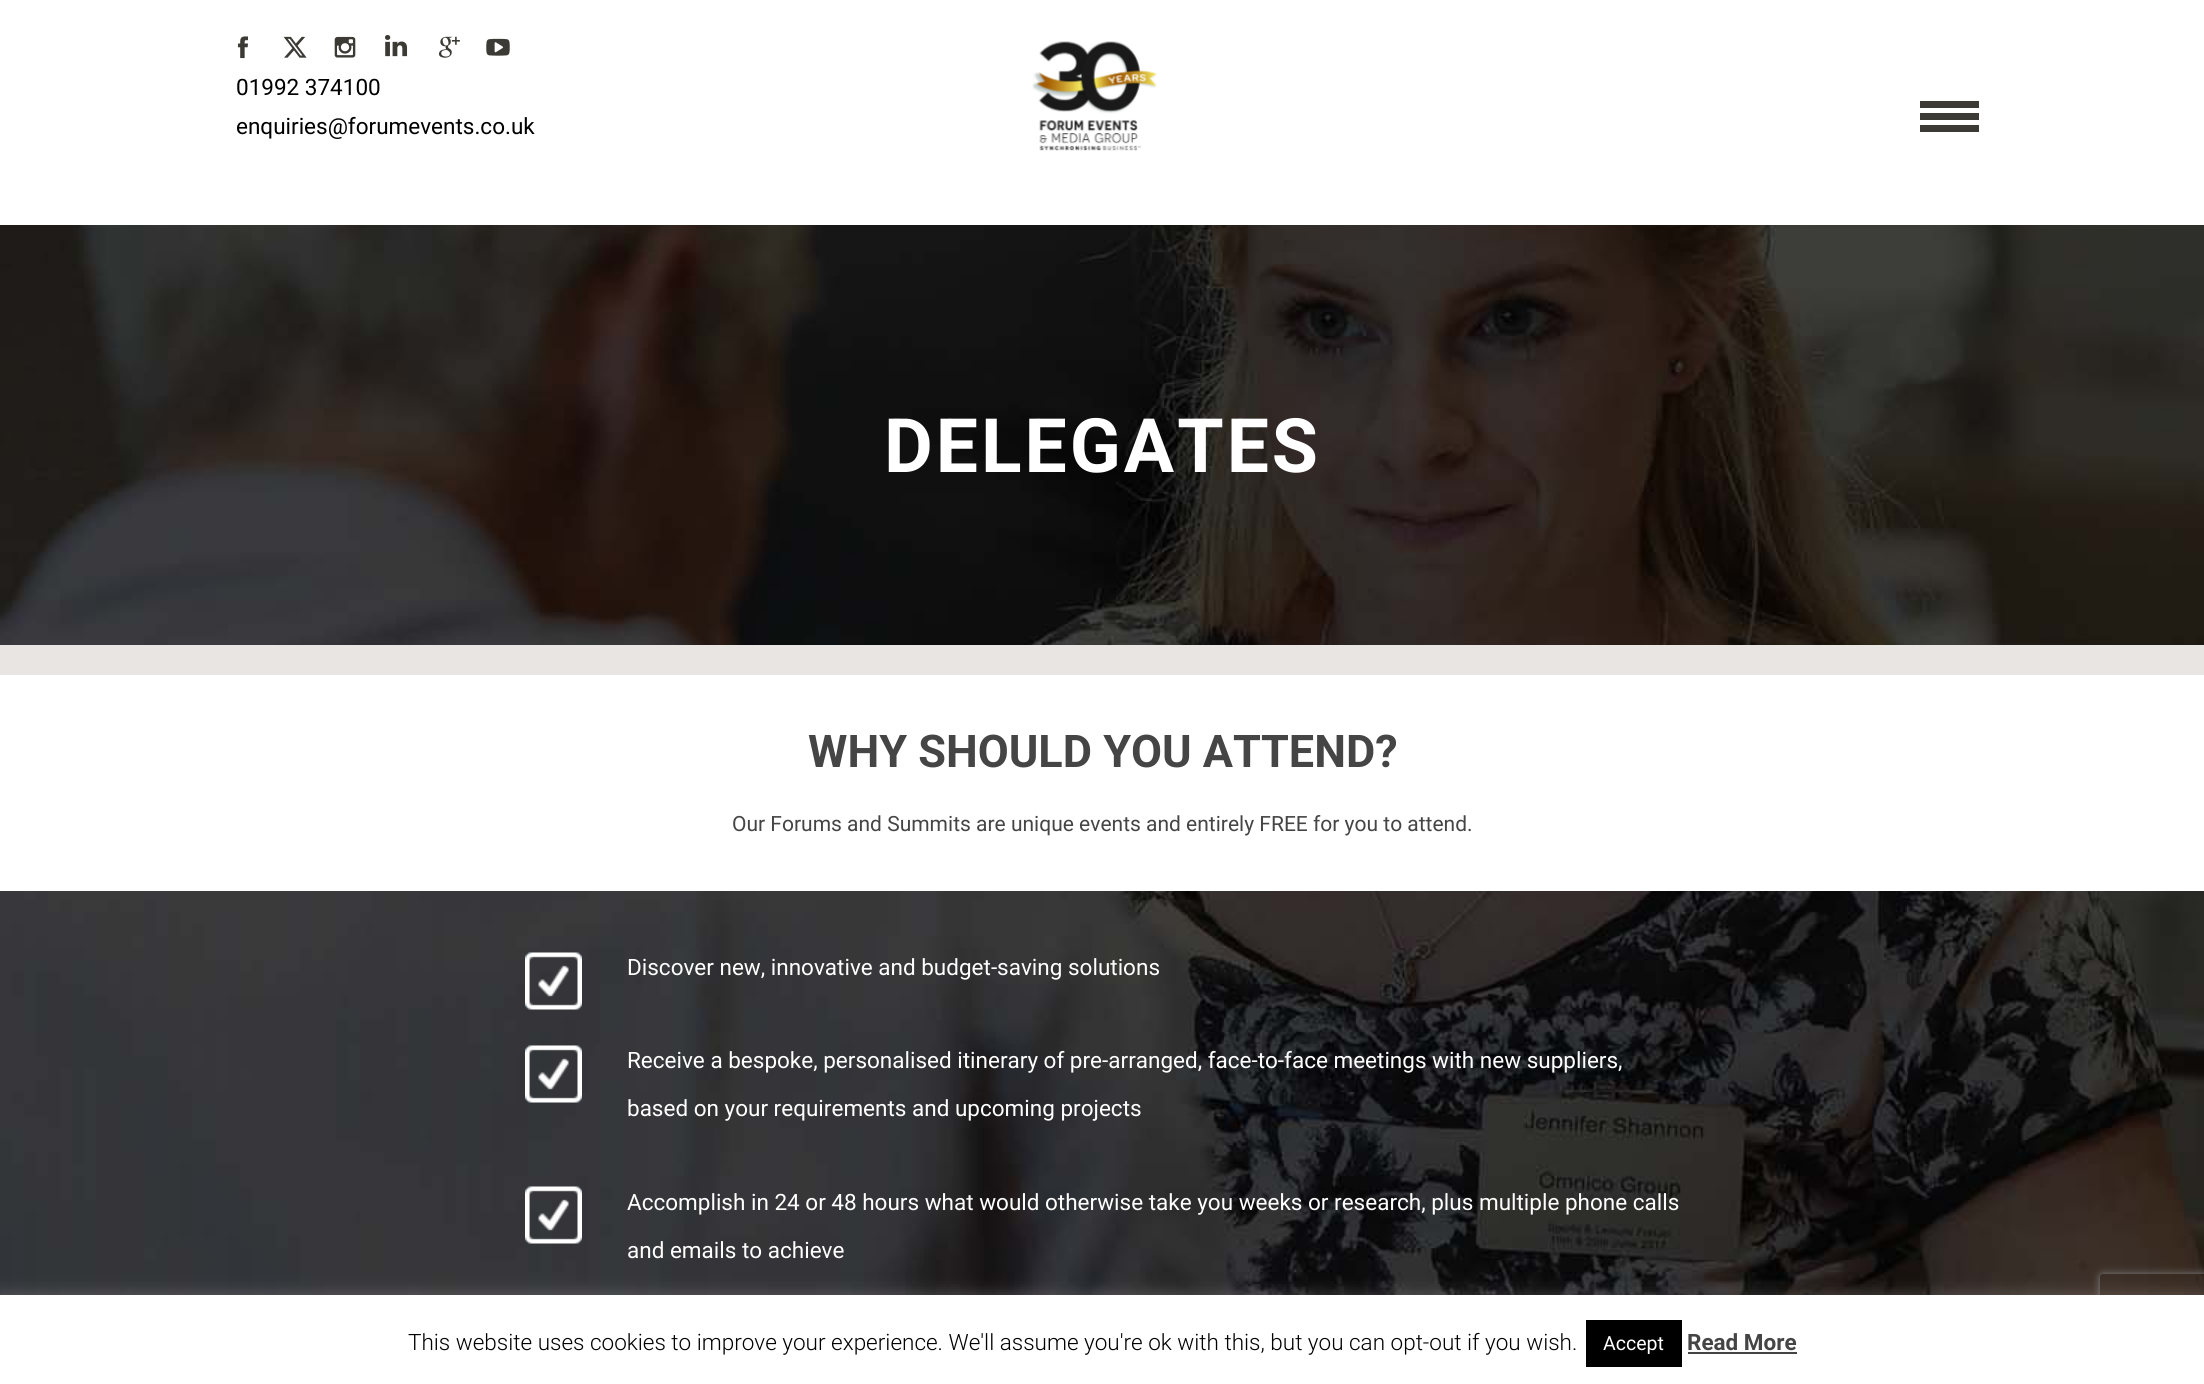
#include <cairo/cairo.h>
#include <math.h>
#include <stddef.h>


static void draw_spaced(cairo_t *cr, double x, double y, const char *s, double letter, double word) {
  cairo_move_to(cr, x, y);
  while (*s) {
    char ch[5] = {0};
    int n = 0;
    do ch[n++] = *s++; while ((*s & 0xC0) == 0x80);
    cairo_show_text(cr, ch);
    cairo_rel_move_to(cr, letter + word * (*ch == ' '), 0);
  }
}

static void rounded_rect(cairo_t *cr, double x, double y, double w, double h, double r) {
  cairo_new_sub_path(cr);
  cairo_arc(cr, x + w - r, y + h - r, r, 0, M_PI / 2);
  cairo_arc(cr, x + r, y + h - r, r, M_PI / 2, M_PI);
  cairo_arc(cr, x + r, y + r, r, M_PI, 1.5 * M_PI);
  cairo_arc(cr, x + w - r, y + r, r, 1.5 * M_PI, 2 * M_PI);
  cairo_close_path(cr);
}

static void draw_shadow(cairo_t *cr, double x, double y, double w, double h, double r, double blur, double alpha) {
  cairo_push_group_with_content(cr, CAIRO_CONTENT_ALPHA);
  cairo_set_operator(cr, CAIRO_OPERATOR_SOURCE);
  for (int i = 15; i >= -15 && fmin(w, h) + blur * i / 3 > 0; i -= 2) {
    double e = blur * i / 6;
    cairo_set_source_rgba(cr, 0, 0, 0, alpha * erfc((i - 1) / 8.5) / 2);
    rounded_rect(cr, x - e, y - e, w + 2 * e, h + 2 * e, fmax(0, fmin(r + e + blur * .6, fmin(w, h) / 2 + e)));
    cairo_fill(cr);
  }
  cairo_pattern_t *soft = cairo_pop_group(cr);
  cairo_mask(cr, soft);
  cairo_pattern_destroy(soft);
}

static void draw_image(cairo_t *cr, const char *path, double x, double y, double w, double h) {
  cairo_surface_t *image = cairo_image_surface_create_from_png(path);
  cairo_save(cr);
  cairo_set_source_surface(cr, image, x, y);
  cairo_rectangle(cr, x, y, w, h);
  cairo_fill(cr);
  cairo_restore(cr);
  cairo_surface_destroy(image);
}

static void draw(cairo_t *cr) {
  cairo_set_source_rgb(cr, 1, 1, 1);
  cairo_paint(cr);
  draw_image(cr, "images/1.png", 0, 225, 2204, 1070);
  draw_image(cr, "images/2.png", 237, 36, 11, 23);
  draw_image(cr, "images/3.png", 283, 36, 24, 22);
  draw_image(cr, "images/4.png", 334, 36, 22, 22);
  draw_image(cr, "images/5.png", 385, 35, 23, 22);
  draw_image(cr, "images/6.png", 439, 36, 21, 22);
  draw_image(cr, "images/7.png", 486, 38, 24, 18);
  draw_image(cr, "images/8.png", 1032, 41, 125, 110);
  cairo_set_source_rgb(cr, 60 / 255.0, 58 / 255.0, 53 / 255.0);
  cairo_rectangle(cr, 1920, 101, 59, 7);
  cairo_fill(cr);
  cairo_rectangle(cr, 1920, 113, 59, 7);
  cairo_fill(cr);
  cairo_rectangle(cr, 1920, 125, 59, 7);
  cairo_fill(cr);
  cairo_set_source_rgb(cr, 232 / 255.0, 229 / 255.0, 227 / 255.0);
  cairo_rectangle(cr, 0, 645, 2204, 30);
  cairo_fill(cr);
  cairo_set_source_rgb(cr, 1, 1, 1);
  cairo_rectangle(cr, 0, 675, 2204, 216);
  cairo_fill(cr);
  draw_image(cr, "images/9.png", 525, 952, 57, 58);
  draw_image(cr, "images/10.png", 525, 1045, 57, 58);
  draw_image(cr, "images/11.png", 525, 1186, 57, 58);
  cairo_save(cr);
  cairo_set_fill_rule(cr, CAIRO_FILL_RULE_EVEN_ODD);
  cairo_new_path(cr);
  cairo_move_to(cr, 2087, 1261);
  cairo_line_to(cr, 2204, 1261);
  cairo_line_to(cr, 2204, 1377);
  cairo_line_to(cr, 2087, 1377);
  cairo_close_path(cr);
  cairo_move_to(cr, 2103, 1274);
  cairo_line_to(cr, 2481, 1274);
  cairo_curve_to(cr, 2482.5, 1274, 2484, 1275.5, 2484, 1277);
  cairo_line_to(cr, 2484, 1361);
  cairo_curve_to(cr, 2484, 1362.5, 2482.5, 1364, 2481, 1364);
  cairo_line_to(cr, 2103, 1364);
  cairo_curve_to(cr, 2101.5, 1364, 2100, 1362.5, 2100, 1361);
  cairo_line_to(cr, 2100, 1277);
  cairo_curve_to(cr, 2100, 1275.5, 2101.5, 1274, 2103, 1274);
  cairo_close_path(cr);
  cairo_clip(cr);
  cairo_set_source_rgb(cr, 128 / 255.0, 128 / 255.0, 128 / 255.0);
  draw_shadow(cr, 2100, 1274, 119, 90, 3, 4, 1);
  cairo_restore(cr);
  cairo_set_source_rgb(cr, 172 / 255.0, 171 / 255.0, 171 / 255.0);
  draw_shadow(cr, 0, 1293, 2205, 90, 0, 7.5, 0.3);
  cairo_set_source_rgb(cr, 1, 1, 1);
  cairo_rectangle(cr, 0, 1295, 2204, 89);
  cairo_fill(cr);
  cairo_set_source_rgb(cr, 0, 0, 0);
  cairo_rectangle(cr, 1586, 1320, 96, 47);
  cairo_fill(cr);
  cairo_set_source_rgb(cr, 68 / 255.0, 68 / 255.0, 68 / 255.0);
  cairo_rectangle(cr, 1688, 1352, 109, 2);
  cairo_fill(cr);
  cairo_select_font_face(cr, "Roboto", CAIRO_FONT_SLANT_NORMAL, CAIRO_FONT_WEIGHT_NORMAL);
  cairo_set_font_size(cr, 22.5);
  cairo_set_source_rgb(cr, 0, 0, 0);
  cairo_move_to(cr, 236, 95);
  cairo_show_text(cr, "01992 374100");
  cairo_move_to(cr, 236, 134);
  cairo_show_text(cr, "enquiries@forumevents.co.uk");
  cairo_select_font_face(cr, "Roboto", CAIRO_FONT_SLANT_NORMAL, CAIRO_FONT_WEIGHT_BOLD);
  cairo_set_font_size(cr, 75);
  cairo_set_source_rgb(cr, 1, 1, 1);
  draw_spaced(cr, 884, 472, "DELEGATES", 3, 0);
  cairo_set_font_size(cr, 45);
  cairo_set_source_rgb(cr, 69 / 255.0, 69 / 255.0, 69 / 255.0);
  cairo_move_to(cr, 808, 767);
  cairo_show_text(cr, "WHY SHOULD YOU ATTEND?");
  cairo_select_font_face(cr, "Roboto", CAIRO_FONT_SLANT_NORMAL, CAIRO_FONT_WEIGHT_NORMAL);
  cairo_set_font_size(cr, 21);
  cairo_move_to(cr, 732, 831);
  cairo_show_text(cr, "Our Forums and Summits are unique events and entirely FREE for you to attend.");
  cairo_set_font_size(cr, 22.5);
  cairo_set_source_rgb(cr, 1, 1, 1);
  cairo_move_to(cr, 627, 975);
  cairo_show_text(cr, "Discover new, innovative and budget-saving solutions");
  cairo_move_to(cr, 627, 1068);
  cairo_show_text(cr, "Receive a bespoke, personalised itinerary of pre-arranged, face-to-face meetings with new suppliers,");
  cairo_move_to(cr, 627, 1116);
  cairo_show_text(cr, "based on your requirements and upcoming projects");
  cairo_move_to(cr, 627, 1210);
  cairo_show_text(cr, "Accomplish in 24 or 48 hours what would otherwise take you weeks or research, plus multiple phone calls");
  cairo_move_to(cr, 627, 1258);
  cairo_show_text(cr, "and emails to achieve");
  cairo_select_font_face(cr, "Roboto Light", CAIRO_FONT_SLANT_NORMAL, CAIRO_FONT_WEIGHT_NORMAL);
  cairo_set_source_rgb(cr, 0, 0, 0);
  cairo_move_to(cr, 408, 1350);
  cairo_show_text(cr, "This website uses cookies to improve your experience. We'll assume you're ok with this, but you can opt-out if you wish.");
  cairo_select_font_face(cr, "Roboto", CAIRO_FONT_SLANT_NORMAL, CAIRO_FONT_WEIGHT_NORMAL);
  cairo_set_font_size(cr, 19.5);
  cairo_set_source_rgb(cr, 1, 1, 1);
  cairo_move_to(cr, 1603, 1350);
  cairo_show_text(cr, "Accept");
  cairo_select_font_face(cr, "Roboto", CAIRO_FONT_SLANT_NORMAL, CAIRO_FONT_WEIGHT_BOLD);
  cairo_set_font_size(cr, 22.5);
  cairo_set_source_rgb(cr, 69 / 255.0, 69 / 255.0, 69 / 255.0);
  cairo_move_to(cr, 1687, 1350);
  cairo_show_text(cr, "Read More");
}

int main(void) {
  cairo_surface_t *surface = cairo_image_surface_create(CAIRO_FORMAT_RGB24, 2204, 1384);
  cairo_t *cr = cairo_create(surface);
  cairo_font_options_t *options = cairo_font_options_create();
  cairo_font_options_set_hint_metrics(options, CAIRO_HINT_METRICS_OFF);
  cairo_font_options_set_hint_style(options, CAIRO_HINT_STYLE_NONE);
  cairo_set_font_options(cr, options);
  cairo_set_miter_limit(cr, 4);
  draw(cr);
  cairo_surface_write_to_png(surface, "out.png");
  cairo_font_options_destroy(options);
  cairo_destroy(cr);
  cairo_surface_destroy(surface);
  return 0;
}
